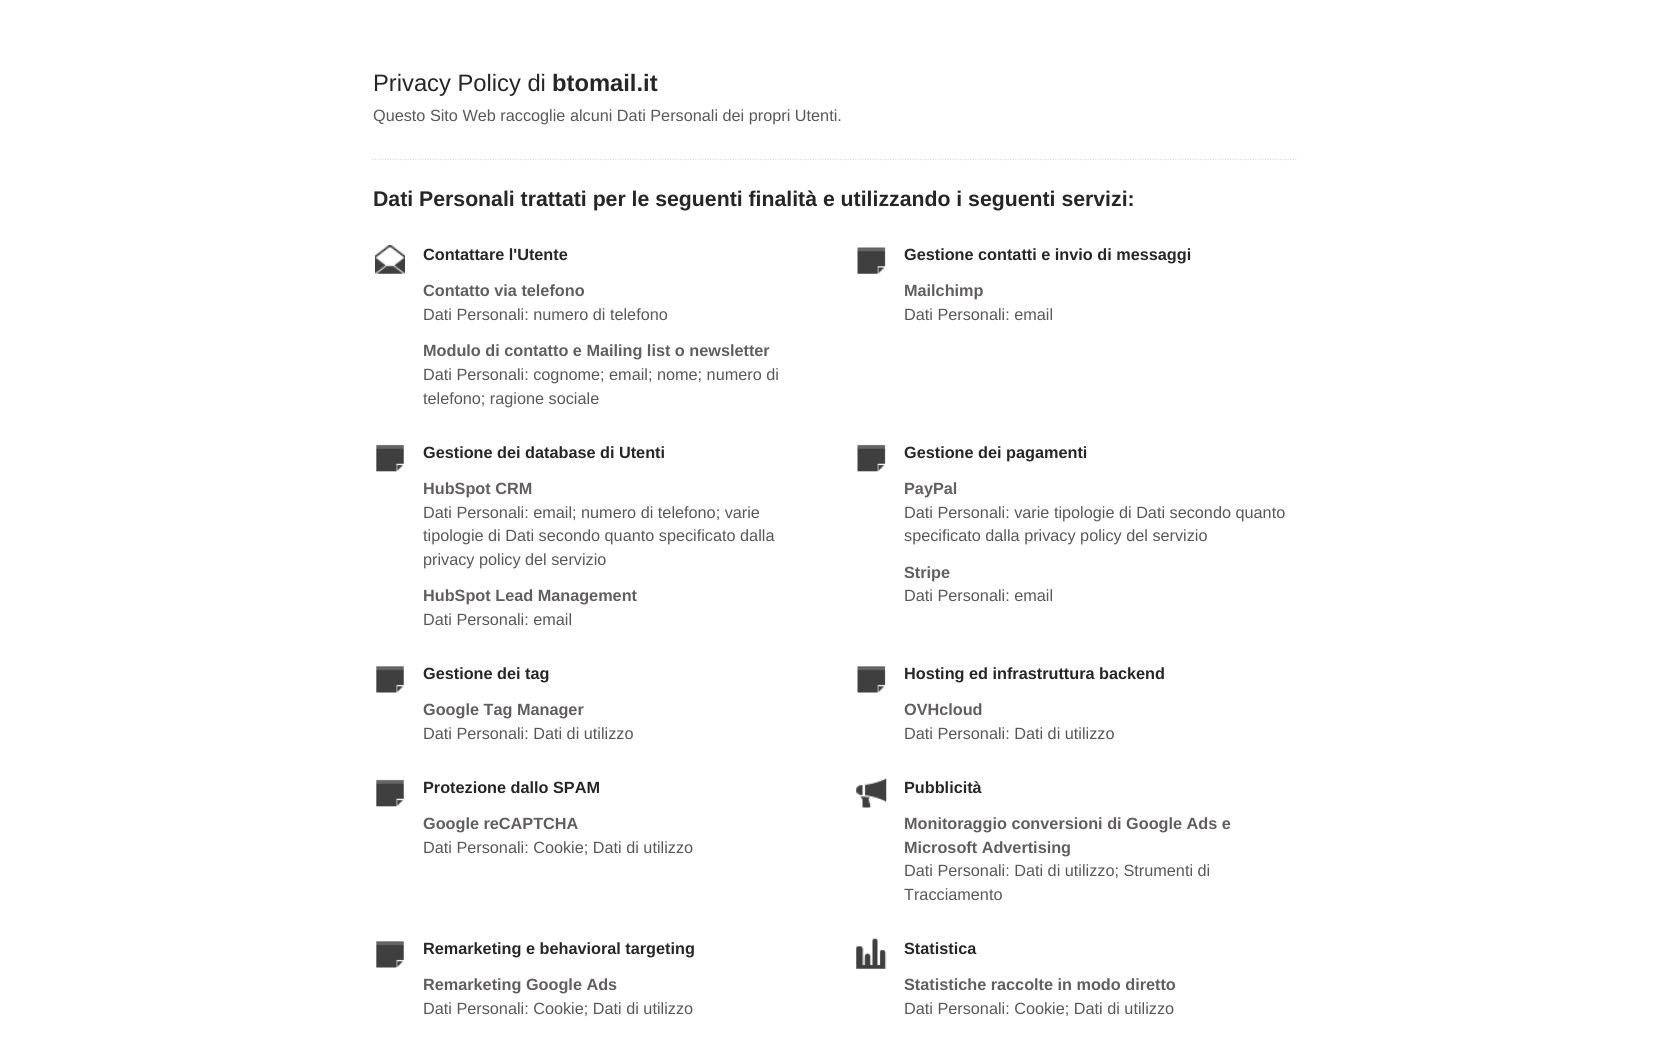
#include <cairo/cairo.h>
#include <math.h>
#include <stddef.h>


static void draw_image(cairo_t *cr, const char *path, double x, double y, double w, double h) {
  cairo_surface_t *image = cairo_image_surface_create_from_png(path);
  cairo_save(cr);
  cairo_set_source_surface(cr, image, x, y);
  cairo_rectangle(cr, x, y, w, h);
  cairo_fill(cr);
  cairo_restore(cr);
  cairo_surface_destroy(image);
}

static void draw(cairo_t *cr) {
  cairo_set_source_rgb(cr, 1, 1, 1);
  cairo_paint(cr);
  cairo_new_path(cr);
  cairo_move_to(cr, 372.5, 159.5);
  cairo_line_to(cr, 1297.5, 159.5);
  cairo_set_source_rgb(cr, 223 / 255.0, 223 / 255.0, 223 / 255.0);
  cairo_set_line_width(cr, 1.2);
  cairo_set_dash(cr, (double[]){1.25, 1.25}, 2, 0);
  cairo_stroke(cr);
  draw_image(cr, "images/1.png", 375, 245, 30, 29);
  draw_image(cr, "images/2.png", 857, 247, 29, 27);
  draw_image(cr, "images/3.png", 376, 444, 28, 28);
  draw_image(cr, "images/4.png", 857, 444, 29, 28);
  draw_image(cr, "images/5.png", 376, 666, 28, 27);
  draw_image(cr, "images/6.png", 857, 666, 29, 27);
  draw_image(cr, "images/3.png", 376, 779, 28, 28);
  draw_image(cr, "images/7.png", 856, 777, 31, 31);
  draw_image(cr, "images/5.png", 376, 941, 28, 27);
  draw_image(cr, "images/8.png", 856, 938, 31, 31);
  cairo_select_font_face(cr, "Liberation Sans", CAIRO_FONT_SLANT_NORMAL, CAIRO_FONT_WEIGHT_NORMAL);
  cairo_set_font_size(cr, 23.75);
  cairo_set_source_rgb(cr, 38 / 255.0, 38 / 255.0, 38 / 255.0);
  cairo_move_to(cr, 373, 91);
  cairo_show_text(cr, "Privacy Policy di");
  cairo_select_font_face(cr, "Liberation Sans", CAIRO_FONT_SLANT_NORMAL, CAIRO_FONT_WEIGHT_BOLD);
  cairo_move_to(cr, 552, 91);
  cairo_show_text(cr, "btomail.it");
  cairo_select_font_face(cr, "Liberation Sans", CAIRO_FONT_SLANT_NORMAL, CAIRO_FONT_WEIGHT_NORMAL);
  cairo_set_font_size(cr, 16.25);
  cairo_set_source_rgb(cr, 89 / 255.0, 88 / 255.0, 88 / 255.0);
  cairo_move_to(cr, 373, 121);
  cairo_show_text(cr, "Questo Sito Web raccoglie alcuni Dati Personali dei propri Utenti.");
  cairo_select_font_face(cr, "Liberation Sans", CAIRO_FONT_SLANT_NORMAL, CAIRO_FONT_WEIGHT_BOLD);
  cairo_set_font_size(cr, 21.25);
  cairo_set_source_rgb(cr, 38 / 255.0, 38 / 255.0, 38 / 255.0);
  cairo_move_to(cr, 373, 206);
  cairo_show_text(cr, "Dati Personali trattati per le seguenti finalità e utilizzando i seguenti servizi:");
  cairo_set_font_size(cr, 16.25);
  cairo_move_to(cr, 423, 260);
  cairo_show_text(cr, "Contattare l'Utente");
  cairo_set_source_rgb(cr, 97 / 255.0, 94 / 255.0, 94 / 255.0);
  cairo_move_to(cr, 423, 296);
  cairo_show_text(cr, "Contatto via telefono");
  cairo_select_font_face(cr, "Liberation Sans", CAIRO_FONT_SLANT_NORMAL, CAIRO_FONT_WEIGHT_NORMAL);
  cairo_set_source_rgb(cr, 89 / 255.0, 88 / 255.0, 88 / 255.0);
  cairo_move_to(cr, 423, 320);
  cairo_show_text(cr, "Dati Personali: numero di telefono");
  cairo_select_font_face(cr, "Liberation Sans", CAIRO_FONT_SLANT_NORMAL, CAIRO_FONT_WEIGHT_BOLD);
  cairo_set_source_rgb(cr, 97 / 255.0, 94 / 255.0, 94 / 255.0);
  cairo_move_to(cr, 423, 356);
  cairo_show_text(cr, "Modulo di contatto e Mailing list o newsletter");
  cairo_select_font_face(cr, "Liberation Sans", CAIRO_FONT_SLANT_NORMAL, CAIRO_FONT_WEIGHT_NORMAL);
  cairo_set_source_rgb(cr, 89 / 255.0, 88 / 255.0, 88 / 255.0);
  cairo_move_to(cr, 423, 380);
  cairo_show_text(cr, "Dati Personali: cognome; email; nome; numero di");
  cairo_move_to(cr, 423, 404);
  cairo_show_text(cr, "telefono; ragione sociale");
  cairo_select_font_face(cr, "Liberation Sans", CAIRO_FONT_SLANT_NORMAL, CAIRO_FONT_WEIGHT_BOLD);
  cairo_set_source_rgb(cr, 38 / 255.0, 38 / 255.0, 38 / 255.0);
  cairo_move_to(cr, 904, 260);
  cairo_show_text(cr, "Gestione contatti e invio di messaggi");
  cairo_set_source_rgb(cr, 97 / 255.0, 94 / 255.0, 94 / 255.0);
  cairo_move_to(cr, 904, 296);
  cairo_show_text(cr, "Mailchimp");
  cairo_select_font_face(cr, "Liberation Sans", CAIRO_FONT_SLANT_NORMAL, CAIRO_FONT_WEIGHT_NORMAL);
  cairo_set_source_rgb(cr, 89 / 255.0, 88 / 255.0, 88 / 255.0);
  cairo_move_to(cr, 904, 320);
  cairo_show_text(cr, "Dati Personali: email");
  cairo_select_font_face(cr, "Liberation Sans", CAIRO_FONT_SLANT_NORMAL, CAIRO_FONT_WEIGHT_BOLD);
  cairo_set_source_rgb(cr, 38 / 255.0, 38 / 255.0, 38 / 255.0);
  cairo_move_to(cr, 423, 458);
  cairo_show_text(cr, "Gestione dei database di Utenti");
  cairo_set_source_rgb(cr, 97 / 255.0, 94 / 255.0, 94 / 255.0);
  cairo_move_to(cr, 423, 494);
  cairo_show_text(cr, "HubSpot CRM");
  cairo_select_font_face(cr, "Liberation Sans", CAIRO_FONT_SLANT_NORMAL, CAIRO_FONT_WEIGHT_NORMAL);
  cairo_set_source_rgb(cr, 89 / 255.0, 88 / 255.0, 88 / 255.0);
  cairo_move_to(cr, 423, 518);
  cairo_show_text(cr, "Dati Personali: email; numero di telefono; varie");
  cairo_move_to(cr, 423, 541);
  cairo_show_text(cr, "tipologie di Dati secondo quanto specificato dalla");
  cairo_move_to(cr, 423, 565);
  cairo_show_text(cr, "privacy policy del servizio");
  cairo_select_font_face(cr, "Liberation Sans", CAIRO_FONT_SLANT_NORMAL, CAIRO_FONT_WEIGHT_BOLD);
  cairo_set_source_rgb(cr, 97 / 255.0, 94 / 255.0, 94 / 255.0);
  cairo_move_to(cr, 423, 601);
  cairo_show_text(cr, "HubSpot Lead Management");
  cairo_select_font_face(cr, "Liberation Sans", CAIRO_FONT_SLANT_NORMAL, CAIRO_FONT_WEIGHT_NORMAL);
  cairo_set_source_rgb(cr, 89 / 255.0, 88 / 255.0, 88 / 255.0);
  cairo_move_to(cr, 423, 625);
  cairo_show_text(cr, "Dati Personali: email");
  cairo_select_font_face(cr, "Liberation Sans", CAIRO_FONT_SLANT_NORMAL, CAIRO_FONT_WEIGHT_BOLD);
  cairo_set_source_rgb(cr, 38 / 255.0, 38 / 255.0, 38 / 255.0);
  cairo_move_to(cr, 904, 458);
  cairo_show_text(cr, "Gestione dei pagamenti");
  cairo_set_source_rgb(cr, 97 / 255.0, 94 / 255.0, 94 / 255.0);
  cairo_move_to(cr, 904, 494);
  cairo_show_text(cr, "PayPal");
  cairo_select_font_face(cr, "Liberation Sans", CAIRO_FONT_SLANT_NORMAL, CAIRO_FONT_WEIGHT_NORMAL);
  cairo_set_source_rgb(cr, 89 / 255.0, 88 / 255.0, 88 / 255.0);
  cairo_move_to(cr, 904, 518);
  cairo_show_text(cr, "Dati Personali: varie tipologie di Dati secondo quanto");
  cairo_move_to(cr, 904, 541);
  cairo_show_text(cr, "specificato dalla privacy policy del servizio");
  cairo_select_font_face(cr, "Liberation Sans", CAIRO_FONT_SLANT_NORMAL, CAIRO_FONT_WEIGHT_BOLD);
  cairo_set_source_rgb(cr, 97 / 255.0, 94 / 255.0, 94 / 255.0);
  cairo_move_to(cr, 904, 578);
  cairo_show_text(cr, "Stripe");
  cairo_select_font_face(cr, "Liberation Sans", CAIRO_FONT_SLANT_NORMAL, CAIRO_FONT_WEIGHT_NORMAL);
  cairo_set_source_rgb(cr, 89 / 255.0, 88 / 255.0, 88 / 255.0);
  cairo_move_to(cr, 904, 601);
  cairo_show_text(cr, "Dati Personali: email");
  cairo_select_font_face(cr, "Liberation Sans", CAIRO_FONT_SLANT_NORMAL, CAIRO_FONT_WEIGHT_BOLD);
  cairo_set_source_rgb(cr, 38 / 255.0, 38 / 255.0, 38 / 255.0);
  cairo_move_to(cr, 423, 679);
  cairo_show_text(cr, "Gestione dei tag");
  cairo_set_source_rgb(cr, 97 / 255.0, 94 / 255.0, 94 / 255.0);
  cairo_move_to(cr, 423, 715);
  cairo_show_text(cr, "Google Tag Manager");
  cairo_select_font_face(cr, "Liberation Sans", CAIRO_FONT_SLANT_NORMAL, CAIRO_FONT_WEIGHT_NORMAL);
  cairo_set_source_rgb(cr, 89 / 255.0, 88 / 255.0, 88 / 255.0);
  cairo_move_to(cr, 423, 739);
  cairo_show_text(cr, "Dati Personali: Dati di utilizzo");
  cairo_select_font_face(cr, "Liberation Sans", CAIRO_FONT_SLANT_NORMAL, CAIRO_FONT_WEIGHT_BOLD);
  cairo_set_source_rgb(cr, 38 / 255.0, 38 / 255.0, 38 / 255.0);
  cairo_move_to(cr, 904, 679);
  cairo_show_text(cr, "Hosting ed infrastruttura backend");
  cairo_set_source_rgb(cr, 97 / 255.0, 94 / 255.0, 94 / 255.0);
  cairo_move_to(cr, 904, 715);
  cairo_show_text(cr, "OVHcloud");
  cairo_select_font_face(cr, "Liberation Sans", CAIRO_FONT_SLANT_NORMAL, CAIRO_FONT_WEIGHT_NORMAL);
  cairo_set_source_rgb(cr, 89 / 255.0, 88 / 255.0, 88 / 255.0);
  cairo_move_to(cr, 904, 739);
  cairo_show_text(cr, "Dati Personali: Dati di utilizzo");
  cairo_select_font_face(cr, "Liberation Sans", CAIRO_FONT_SLANT_NORMAL, CAIRO_FONT_WEIGHT_BOLD);
  cairo_set_source_rgb(cr, 38 / 255.0, 38 / 255.0, 38 / 255.0);
  cairo_move_to(cr, 423, 793);
  cairo_show_text(cr, "Protezione dallo SPAM");
  cairo_set_source_rgb(cr, 97 / 255.0, 94 / 255.0, 94 / 255.0);
  cairo_move_to(cr, 423, 829);
  cairo_show_text(cr, "Google reCAPTCHA");
  cairo_select_font_face(cr, "Liberation Sans", CAIRO_FONT_SLANT_NORMAL, CAIRO_FONT_WEIGHT_NORMAL);
  cairo_set_source_rgb(cr, 89 / 255.0, 88 / 255.0, 88 / 255.0);
  cairo_move_to(cr, 423, 853);
  cairo_show_text(cr, "Dati Personali: Cookie; Dati di utilizzo");
  cairo_select_font_face(cr, "Liberation Sans", CAIRO_FONT_SLANT_NORMAL, CAIRO_FONT_WEIGHT_BOLD);
  cairo_set_source_rgb(cr, 38 / 255.0, 38 / 255.0, 38 / 255.0);
  cairo_move_to(cr, 904, 793);
  cairo_show_text(cr, "Pubblicità");
  cairo_set_source_rgb(cr, 97 / 255.0, 94 / 255.0, 94 / 255.0);
  cairo_move_to(cr, 904, 829);
  cairo_show_text(cr, "Monitoraggio conversioni di Google Ads e");
  cairo_move_to(cr, 904, 853);
  cairo_show_text(cr, "Microsoft Advertising");
  cairo_select_font_face(cr, "Liberation Sans", CAIRO_FONT_SLANT_NORMAL, CAIRO_FONT_WEIGHT_NORMAL);
  cairo_set_source_rgb(cr, 89 / 255.0, 88 / 255.0, 88 / 255.0);
  cairo_move_to(cr, 904, 876);
  cairo_show_text(cr, "Dati Personali: Dati di utilizzo; Strumenti di");
  cairo_move_to(cr, 904, 900);
  cairo_show_text(cr, "Tracciamento");
  cairo_select_font_face(cr, "Liberation Sans", CAIRO_FONT_SLANT_NORMAL, CAIRO_FONT_WEIGHT_BOLD);
  cairo_set_source_rgb(cr, 38 / 255.0, 38 / 255.0, 38 / 255.0);
  cairo_move_to(cr, 423, 954);
  cairo_show_text(cr, "Remarketing e behavioral targeting");
  cairo_set_source_rgb(cr, 97 / 255.0, 94 / 255.0, 94 / 255.0);
  cairo_move_to(cr, 423, 990);
  cairo_show_text(cr, "Remarketing Google Ads");
  cairo_select_font_face(cr, "Liberation Sans", CAIRO_FONT_SLANT_NORMAL, CAIRO_FONT_WEIGHT_NORMAL);
  cairo_set_source_rgb(cr, 89 / 255.0, 88 / 255.0, 88 / 255.0);
  cairo_move_to(cr, 423, 1014);
  cairo_show_text(cr, "Dati Personali: Cookie; Dati di utilizzo");
  cairo_select_font_face(cr, "Liberation Sans", CAIRO_FONT_SLANT_NORMAL, CAIRO_FONT_WEIGHT_BOLD);
  cairo_set_source_rgb(cr, 38 / 255.0, 38 / 255.0, 38 / 255.0);
  cairo_move_to(cr, 904, 954);
  cairo_show_text(cr, "Statistica");
  cairo_set_source_rgb(cr, 97 / 255.0, 94 / 255.0, 94 / 255.0);
  cairo_move_to(cr, 904, 990);
  cairo_show_text(cr, "Statistiche raccolte in modo diretto");
  cairo_select_font_face(cr, "Liberation Sans", CAIRO_FONT_SLANT_NORMAL, CAIRO_FONT_WEIGHT_NORMAL);
  cairo_set_source_rgb(cr, 89 / 255.0, 88 / 255.0, 88 / 255.0);
  cairo_move_to(cr, 904, 1014);
  cairo_show_text(cr, "Dati Personali: Cookie; Dati di utilizzo");
}

int main(void) {
  cairo_surface_t *surface = cairo_image_surface_create(CAIRO_FORMAT_RGB24, 1670, 1043);
  cairo_t *cr = cairo_create(surface);
  cairo_font_options_t *options = cairo_font_options_create();
  cairo_font_options_set_hint_metrics(options, CAIRO_HINT_METRICS_OFF);
  cairo_font_options_set_hint_style(options, CAIRO_HINT_STYLE_NONE);
  cairo_set_font_options(cr, options);
  cairo_set_miter_limit(cr, 4);
  draw(cr);
  cairo_surface_write_to_png(surface, "out.png");
  cairo_font_options_destroy(options);
  cairo_destroy(cr);
  cairo_surface_destroy(surface);
  return 0;
}
